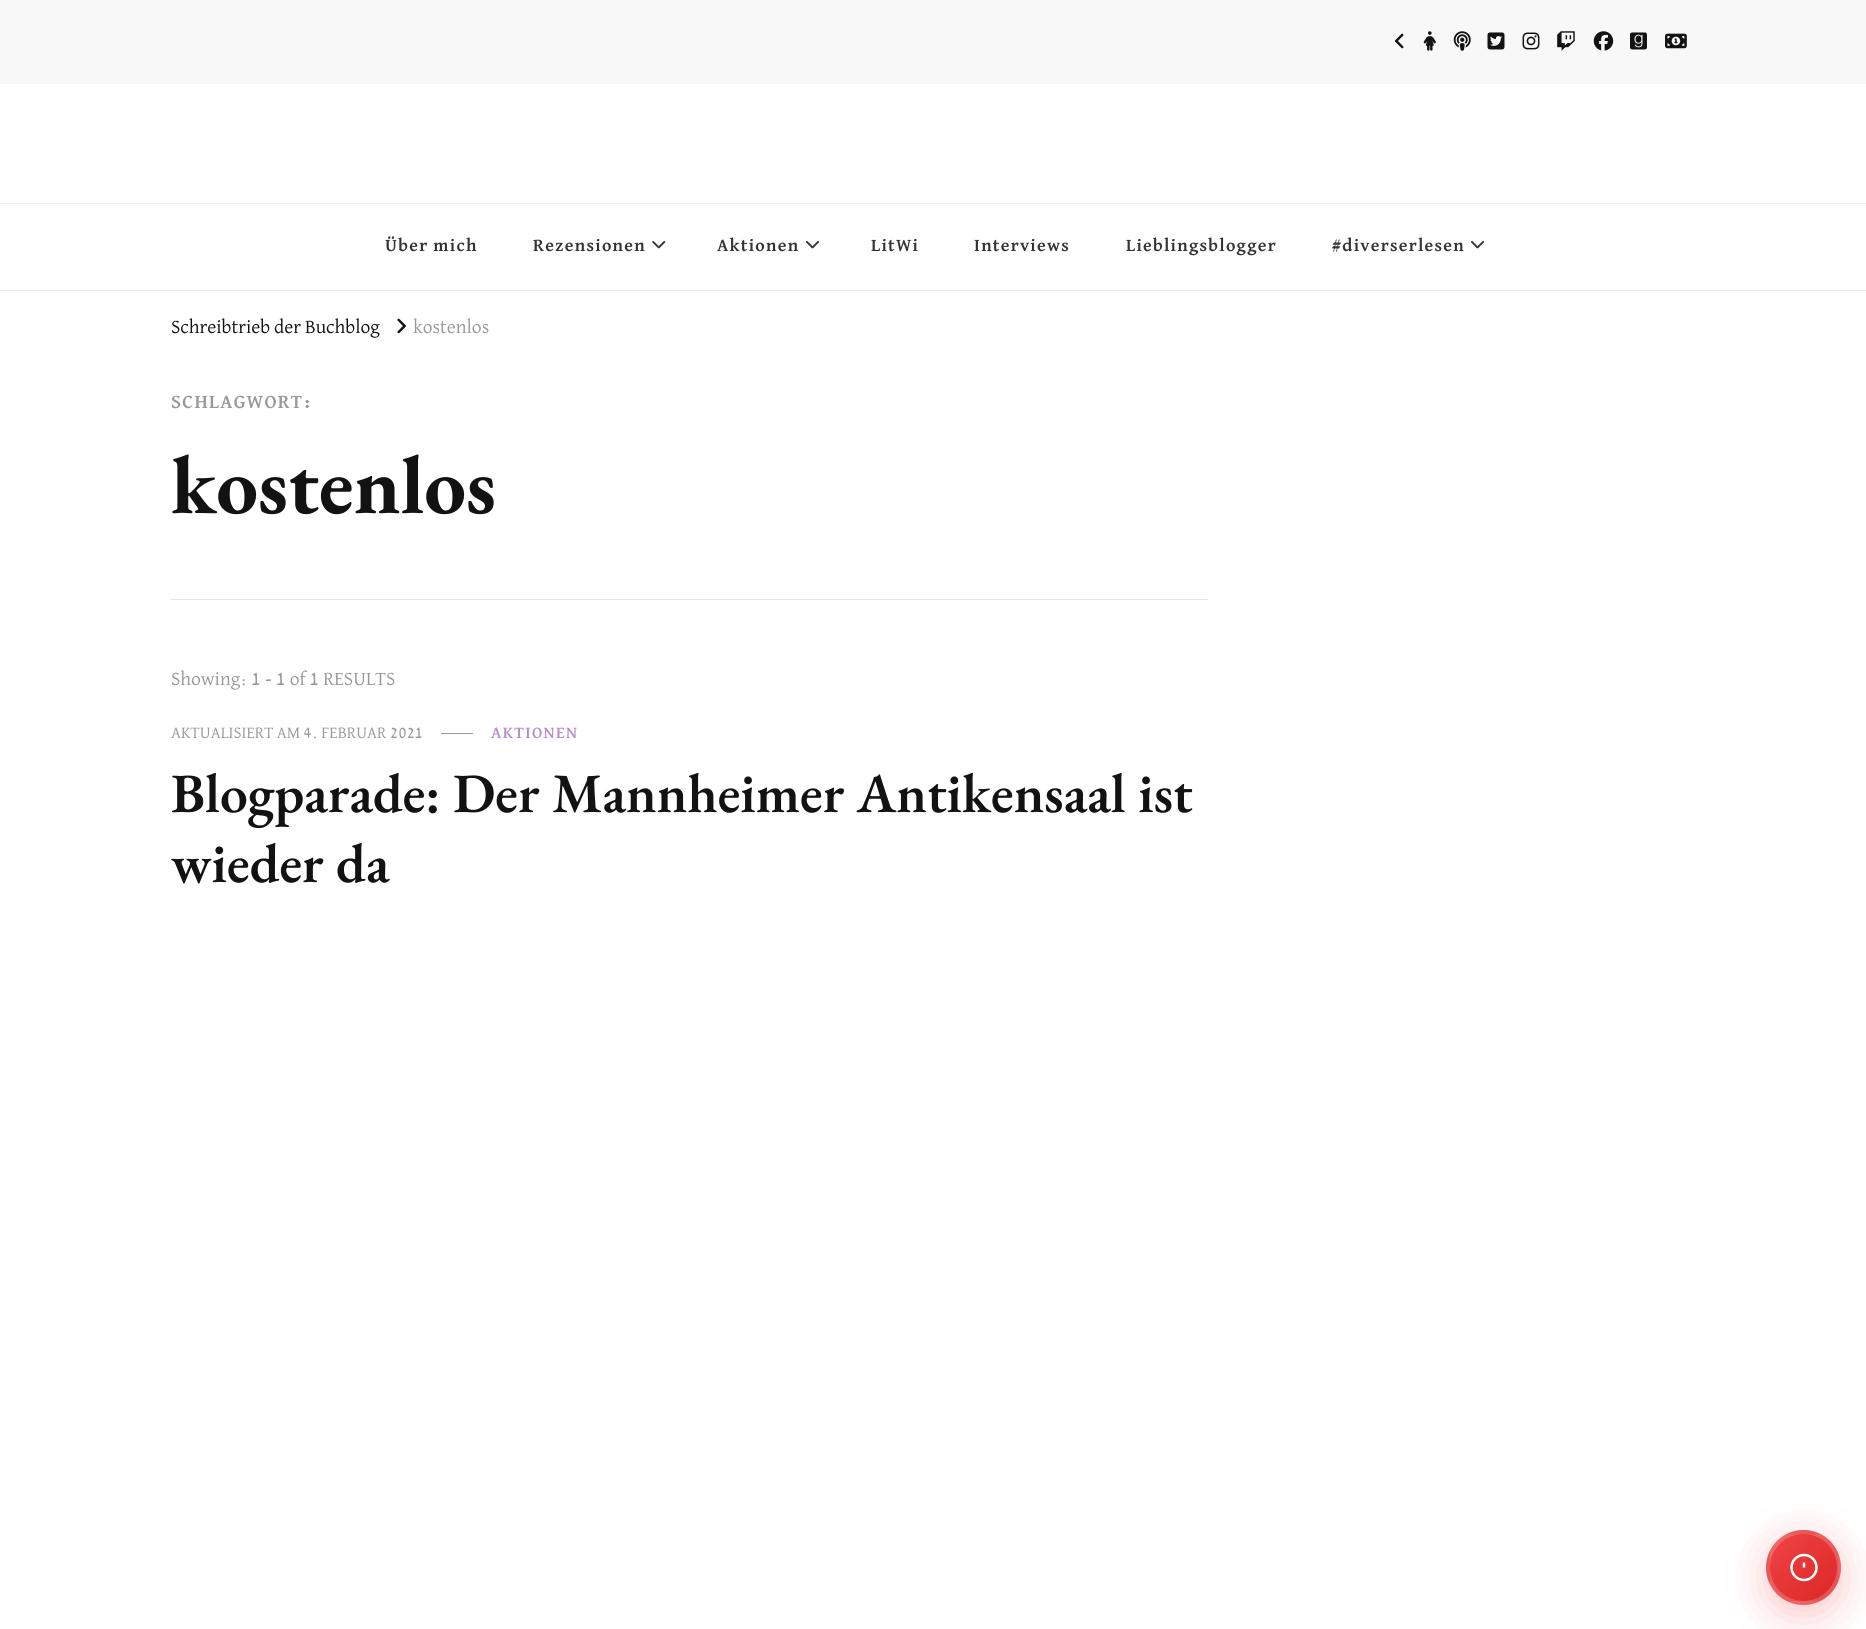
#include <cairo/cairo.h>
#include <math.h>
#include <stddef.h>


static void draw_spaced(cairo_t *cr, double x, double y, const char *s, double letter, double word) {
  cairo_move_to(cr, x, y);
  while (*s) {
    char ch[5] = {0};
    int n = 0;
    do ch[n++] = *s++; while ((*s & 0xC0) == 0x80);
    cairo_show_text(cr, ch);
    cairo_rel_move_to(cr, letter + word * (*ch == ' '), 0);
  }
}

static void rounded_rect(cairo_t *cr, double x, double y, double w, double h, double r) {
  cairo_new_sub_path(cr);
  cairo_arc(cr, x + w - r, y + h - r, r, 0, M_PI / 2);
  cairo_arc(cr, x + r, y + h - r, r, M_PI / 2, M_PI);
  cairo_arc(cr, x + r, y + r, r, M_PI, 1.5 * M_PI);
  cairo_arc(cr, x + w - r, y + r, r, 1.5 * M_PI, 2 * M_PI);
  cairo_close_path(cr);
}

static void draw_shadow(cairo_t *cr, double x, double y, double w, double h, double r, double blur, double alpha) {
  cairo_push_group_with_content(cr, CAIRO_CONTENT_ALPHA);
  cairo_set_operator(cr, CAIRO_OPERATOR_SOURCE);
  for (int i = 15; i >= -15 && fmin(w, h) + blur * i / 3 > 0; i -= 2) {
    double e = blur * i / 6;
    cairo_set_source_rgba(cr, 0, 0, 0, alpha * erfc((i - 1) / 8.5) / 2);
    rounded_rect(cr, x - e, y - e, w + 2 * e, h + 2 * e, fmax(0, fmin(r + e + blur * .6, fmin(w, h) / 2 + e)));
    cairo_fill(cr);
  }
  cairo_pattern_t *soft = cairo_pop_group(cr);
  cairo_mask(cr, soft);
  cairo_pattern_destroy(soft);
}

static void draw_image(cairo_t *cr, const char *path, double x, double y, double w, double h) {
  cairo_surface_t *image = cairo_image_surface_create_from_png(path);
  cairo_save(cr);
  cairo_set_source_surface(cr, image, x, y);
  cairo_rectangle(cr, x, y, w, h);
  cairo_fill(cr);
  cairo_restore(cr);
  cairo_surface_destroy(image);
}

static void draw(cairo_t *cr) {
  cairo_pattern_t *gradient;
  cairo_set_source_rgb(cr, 1, 1, 1);
  cairo_paint(cr);
  cairo_set_source_rgb(cr, 248 / 255.0, 248 / 255.0, 248 / 255.0);
  cairo_rectangle(cr, 0, 0, 1866, 84);
  cairo_fill(cr);
  draw_image(cr, "images/1.png", 1395, 33, 9, 16);
  draw_image(cr, "images/2.png", 1423, 31, 13, 20);
  draw_image(cr, "images/3.png", 1453, 31, 18, 20);
  draw_image(cr, "images/4.png", 1487, 32, 18, 18);
  draw_image(cr, "images/5.png", 1522, 32, 18, 18);
  draw_image(cr, "images/6.png", 1557, 31, 18, 20);
  draw_image(cr, "images/7.png", 1593, 31, 21, 20);
  draw_image(cr, "images/8.png", 1630, 32, 17, 18);
  draw_image(cr, "images/9.png", 1665, 33, 22, 16);
  cairo_set_source_rgb(cr, 237 / 255.0, 237 / 255.0, 237 / 255.0);
  cairo_rectangle(cr, 0, 203, 1866, 1);
  cairo_fill(cr);
  cairo_rectangle(cr, 0, 290, 1866, 1);
  cairo_fill(cr);
  draw_image(cr, "images/10.png", 652, 241, 14, 8);
  draw_image(cr, "images/11.png", 806, 241, 13, 8);
  draw_image(cr, "images/11.png", 1471, 241, 13, 8);
  draw_image(cr, "images/12.png", 397, 318, 9, 16);
  cairo_set_source_rgb(cr, 230 / 255.0, 230 / 255.0, 230 / 255.0);
  cairo_rectangle(cr, 171, 599, 1037, 1);
  cairo_fill(cr);
  cairo_set_source_rgb(cr, 153 / 255.0, 153 / 255.0, 153 / 255.0);
  cairo_rectangle(cr, 441, 733, 32, 1);
  cairo_fill(cr);
  cairo_set_source_rgb(cr, 239 / 255.0, 68 / 255.0, 68 / 255.0);
  draw_shadow(cr, 1766, 1540, 75, 75, 37.5, 20, 0.3);
  cairo_save(cr);
  rounded_rect(cr, 1766, 1530, 75, 75, 37.5);
  cairo_clip(cr);
  gradient = cairo_pattern_create_linear(1770, 1466, 1838, 1534);
  cairo_pattern_add_color_stop_rgba(gradient, 0, 239 / 255.0, 68 / 255.0, 68 / 255.0, 1);
  cairo_pattern_add_color_stop_rgba(gradient, 1, 220 / 255.0, 38 / 255.0, 38 / 255.0, 1);
  cairo_set_source(cr, gradient);
  cairo_pattern_destroy(gradient);
  cairo_rectangle(cr, 1787, 1530, 34, 4);
  cairo_fill(cr);
  gradient = cairo_pattern_create_linear(1703, 1534, 1770, 1601);
  cairo_pattern_add_color_stop_rgba(gradient, 0, 239 / 255.0, 68 / 255.0, 68 / 255.0, 1);
  cairo_pattern_add_color_stop_rgba(gradient, 1, 220 / 255.0, 38 / 255.0, 38 / 255.0, 1);
  cairo_set_source(cr, gradient);
  cairo_pattern_destroy(gradient);
  cairo_rectangle(cr, 1766, 1550, 4, 34);
  cairo_fill(cr);
  gradient = cairo_pattern_create_linear(1770, 1534, 1838, 1601);
  cairo_pattern_add_color_stop_rgba(gradient, 0, 239 / 255.0, 68 / 255.0, 68 / 255.0, 1);
  cairo_pattern_add_color_stop_rgba(gradient, 1, 220 / 255.0, 38 / 255.0, 38 / 255.0, 1);
  cairo_set_source(cr, gradient);
  cairo_pattern_destroy(gradient);
  cairo_rectangle(cr, 1770, 1534, 68, 67);
  cairo_fill(cr);
  gradient = cairo_pattern_create_linear(1838, 1534, 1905, 1601);
  cairo_pattern_add_color_stop_rgba(gradient, 0, 239 / 255.0, 68 / 255.0, 68 / 255.0, 1);
  cairo_pattern_add_color_stop_rgba(gradient, 1, 220 / 255.0, 38 / 255.0, 38 / 255.0, 1);
  cairo_set_source(cr, gradient);
  cairo_pattern_destroy(gradient);
  cairo_rectangle(cr, 1838, 1553, 3, 29);
  cairo_fill(cr);
  gradient = cairo_pattern_create_linear(1770, 1601, 1838, 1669);
  cairo_pattern_add_color_stop_rgba(gradient, 0, 239 / 255.0, 68 / 255.0, 68 / 255.0, 1);
  cairo_pattern_add_color_stop_rgba(gradient, 1, 220 / 255.0, 38 / 255.0, 38 / 255.0, 1);
  cairo_set_source(cr, gradient);
  cairo_pattern_destroy(gradient);
  cairo_rectangle(cr, 1787, 1601, 33, 4);
  cairo_fill(cr);
  cairo_restore(cr);
  cairo_arc(cr, 1803.5, 1567.5, 35.5, 0, 2 * M_PI);
  cairo_set_source_rgba(cr, 1, 1, 1, 0.2);
  cairo_set_line_width(cr, 4);
  cairo_stroke(cr);
  cairo_arc(cr, 1804, 1567.5, 12.5, 0, 2 * M_PI);
  cairo_set_source_rgb(cr, 1, 1, 1);
  cairo_set_line_width(cr, 2.5);
  cairo_stroke(cr);
  cairo_new_path(cr);
  cairo_move_to(cr, 1804, 1562.5);
  cairo_line_to(cr, 1804, 1567.5);
  cairo_stroke(cr);
  cairo_select_font_face(cr, "David Libre", CAIRO_FONT_SLANT_NORMAL, CAIRO_FONT_WEIGHT_BOLD);
  cairo_set_font_size(cr, 18);
  cairo_set_source_rgb(cr, 51 / 255.0, 51 / 255.0, 51 / 255.0);
  draw_spaced(cr, 385, 251, "Über mich", 1.25, 0);
  draw_spaced(cr, 533, 251, "Rezensionen", 1.25, 0);
  draw_spaced(cr, 717, 251, "Aktionen", 1.25, 0);
  draw_spaced(cr, 871, 251, "LitWi", 1.25, 0);
  draw_spaced(cr, 974, 251, "Interviews", 1.25, 0);
  draw_spaced(cr, 1126, 251, "Lieblingsblogger", 1.25, 0);
  draw_spaced(cr, 1332, 251, "#diverserlesen", 1.25, 0);
  cairo_select_font_face(cr, "David Libre", CAIRO_FONT_SLANT_NORMAL, CAIRO_FONT_WEIGHT_NORMAL);
  cairo_set_font_size(cr, 19.5);
  cairo_set_source_rgb(cr, 18 / 255.0, 18 / 255.0, 18 / 255.0);
  cairo_move_to(cr, 171, 333);
  cairo_show_text(cr, "Schreibtrieb der Buchblog");
  cairo_set_source_rgb(cr, 153 / 255.0, 153 / 255.0, 153 / 255.0);
  cairo_move_to(cr, 413, 333);
  cairo_show_text(cr, "kostenlos");
  cairo_select_font_face(cr, "David Libre", CAIRO_FONT_SLANT_NORMAL, CAIRO_FONT_WEIGHT_BOLD);
  draw_spaced(cr, 171, 408, "SCHLAGWORT:", 1.25, 0);
  cairo_select_font_face(cr, "EB Garamond", CAIRO_FONT_SLANT_NORMAL, CAIRO_FONT_WEIGHT_BOLD);
  cairo_set_font_size(cr, 83);
  cairo_set_source_rgb(cr, 18 / 255.0, 18 / 255.0, 18 / 255.0);
  cairo_move_to(cr, 171, 513);
  cairo_show_text(cr, "kostenlos");
  cairo_select_font_face(cr, "David Libre", CAIRO_FONT_SLANT_NORMAL, CAIRO_FONT_WEIGHT_NORMAL);
  cairo_set_font_size(cr, 19.5);
  cairo_set_source_rgb(cr, 153 / 255.0, 153 / 255.0, 153 / 255.0);
  cairo_move_to(cr, 171, 685);
  cairo_show_text(cr, "Showing: 1 - 1 of 1 RESULTS");
  cairo_set_font_size(cr, 16.7);
  cairo_move_to(cr, 171, 738);
  cairo_show_text(cr, "AKTUALISIERT AM 4. FEBRUAR 2021");
  cairo_select_font_face(cr, "David Libre", CAIRO_FONT_SLANT_NORMAL, CAIRO_FONT_WEIGHT_BOLD);
  cairo_set_source_rgb(cr, 184 / 255.0, 143 / 255.0, 201 / 255.0);
  draw_spaced(cr, 491, 738, "AKTIONEN", 1.25, 0);
  cairo_select_font_face(cr, "EB Garamond SemiBold", CAIRO_FONT_SLANT_NORMAL, CAIRO_FONT_WEIGHT_NORMAL);
  cairo_set_font_size(cr, 55.5);
  cairo_set_source_rgb(cr, 18 / 255.0, 18 / 255.0, 18 / 255.0);
  cairo_move_to(cr, 171, 812);
  cairo_show_text(cr, "Blogparade: Der Mannheimer Antikensaal ist");
  cairo_move_to(cr, 171, 882);
  cairo_show_text(cr, "wieder da");
}

int main(void) {
  cairo_surface_t *surface = cairo_image_surface_create(CAIRO_FORMAT_RGB24, 1866, 1629);
  cairo_t *cr = cairo_create(surface);
  cairo_font_options_t *options = cairo_font_options_create();
  cairo_font_options_set_hint_metrics(options, CAIRO_HINT_METRICS_OFF);
  cairo_font_options_set_hint_style(options, CAIRO_HINT_STYLE_NONE);
  cairo_set_font_options(cr, options);
  cairo_set_miter_limit(cr, 4);
  draw(cr);
  cairo_surface_write_to_png(surface, "out.png");
  cairo_font_options_destroy(options);
  cairo_destroy(cr);
  cairo_surface_destroy(surface);
  return 0;
}
